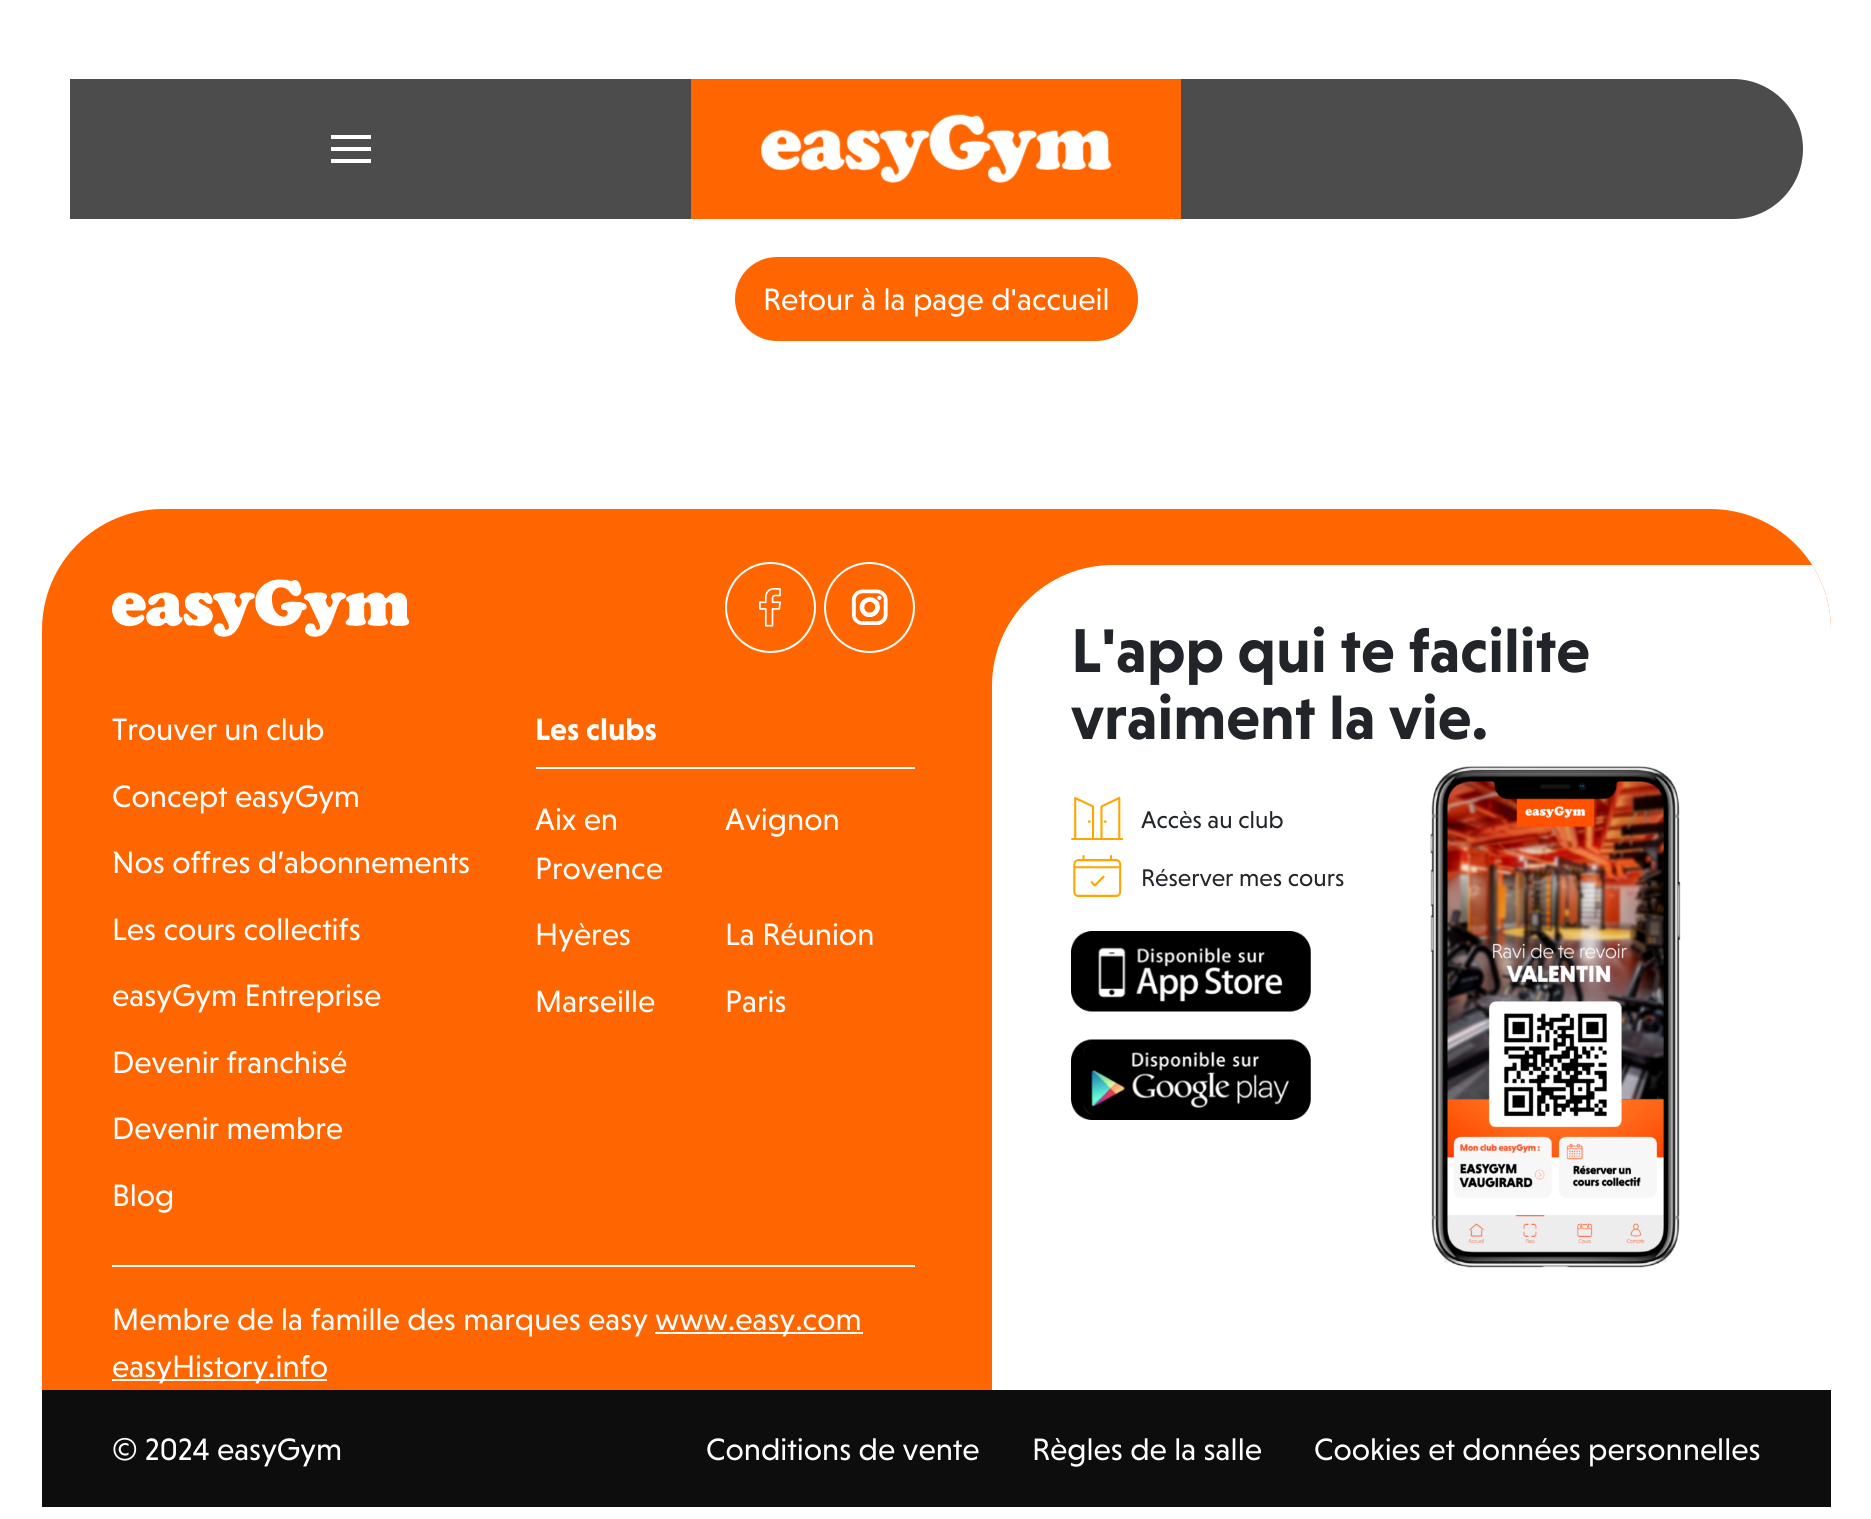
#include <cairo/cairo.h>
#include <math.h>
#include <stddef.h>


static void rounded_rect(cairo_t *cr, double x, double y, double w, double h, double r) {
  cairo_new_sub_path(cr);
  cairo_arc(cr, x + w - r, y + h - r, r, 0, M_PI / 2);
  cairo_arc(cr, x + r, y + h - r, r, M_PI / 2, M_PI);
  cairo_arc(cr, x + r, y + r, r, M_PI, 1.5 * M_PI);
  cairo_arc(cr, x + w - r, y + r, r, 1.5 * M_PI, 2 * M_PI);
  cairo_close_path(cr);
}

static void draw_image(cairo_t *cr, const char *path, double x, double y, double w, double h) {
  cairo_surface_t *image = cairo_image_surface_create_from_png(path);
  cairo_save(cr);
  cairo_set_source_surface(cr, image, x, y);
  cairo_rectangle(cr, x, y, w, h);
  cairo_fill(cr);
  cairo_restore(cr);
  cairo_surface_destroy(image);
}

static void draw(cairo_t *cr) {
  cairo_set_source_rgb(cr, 1, 1, 1);
  cairo_paint(cr);
  cairo_set_source_rgba(cr, 0, 0, 0, 0.7);
  cairo_new_path(cr);
  cairo_move_to(cr, 70, 79);
  cairo_line_to(cr, 1733, 79);
  cairo_curve_to(cr, 1771.5, 79, 1803, 110.5, 1803, 149);
  cairo_curve_to(cr, 1803, 187.5, 1771.5, 219, 1733, 219);
  cairo_line_to(cr, 70, 219);
  cairo_close_path(cr);
  cairo_fill(cr);
  cairo_set_source_rgb(cr, 1, 1, 1);
  cairo_rectangle(cr, 331, 135, 40, 4);
  cairo_fill(cr);
  cairo_rectangle(cr, 331, 147, 40, 4);
  cairo_fill(cr);
  cairo_rectangle(cr, 331, 159, 40, 4);
  cairo_fill(cr);
  cairo_set_source_rgb(cr, 1, 102 / 255.0, 0);
  cairo_rectangle(cr, 691, 79, 490, 140);
  cairo_fill(cr);
  draw_image(cr, "images/1.png", 761, 114, 351, 69);
  rounded_rect(cr, 736, 258, 401, 82, 41);
  cairo_fill_preserve(cr);
  cairo_stroke(cr);
  cairo_new_path(cr);
  cairo_move_to(cr, 163, 509);
  cairo_line_to(cr, 1710, 509);
  cairo_curve_to(cr, 1777, 509, 1831, 563, 1831, 630);
  cairo_line_to(cr, 1831, 1507);
  cairo_line_to(cr, 42, 1507);
  cairo_line_to(cr, 42, 630);
  cairo_curve_to(cr, 42, 563, 96, 509, 163, 509);
  cairo_close_path(cr);
  cairo_fill(cr);
  draw_image(cr, "images/2.png", 112, 579, 298, 58);
  cairo_arc(cr, 770.5, 607.5, 44.5, 0, 2 * M_PI);
  cairo_set_source_rgb(cr, 1, 1, 1);
  cairo_stroke(cr);
  draw_image(cr, "images/3.png", 759, 587, 22, 40);
  cairo_arc(cr, 869.5, 607.5, 44.5, 0, 2 * M_PI);
  cairo_stroke(cr);
  draw_image(cr, "images/4.png", 851, 589, 37, 36);
  cairo_rectangle(cr, 536, 767, 379, 2);
  cairo_fill(cr);
  cairo_rectangle(cr, 112, 1265, 803, 2);
  cairo_fill(cr);
  cairo_rectangle(cr, 655, 1332, 208, 2);
  cairo_fill(cr);
  cairo_rectangle(cr, 112, 1379, 215, 2);
  cairo_fill(cr);
  cairo_save(cr);
  cairo_new_path(cr);
  cairo_move_to(cr, 163, 509);
  cairo_line_to(cr, 1710, 509);
  cairo_curve_to(cr, 1777, 509, 1831, 563, 1831, 630);
  cairo_line_to(cr, 1831, 1507);
  cairo_line_to(cr, 42, 1507);
  cairo_line_to(cr, 42, 630);
  cairo_curve_to(cr, 42, 563, 96, 509, 163, 509);
  cairo_close_path(cr);
  cairo_clip(cr);
  cairo_new_path(cr);
  cairo_move_to(cr, 1113, 565);
  cairo_line_to(cr, 1831, 565);
  cairo_line_to(cr, 1831, 1390);
  cairo_line_to(cr, 992, 1390);
  cairo_line_to(cr, 992, 686);
  cairo_curve_to(cr, 992, 619, 1046, 565, 1113, 565);
  cairo_close_path(cr);
  cairo_fill(cr);
  cairo_restore(cr);
  draw_image(cr, "images/5.png", 1071, 796, 53, 44);
  draw_image(cr, "images/6.png", 1073, 855, 49, 42);
  draw_image(cr, "images/7.png", 1071, 931, 240, 81);
  draw_image(cr, "images/8.png", 1071, 1039, 240, 81);
  draw_image(cr, "images/9.png", 1430, 766, 251, 502);
  cairo_set_source_rgb(cr, 13 / 255.0, 13 / 255.0, 14 / 255.0);
  cairo_rectangle(cr, 42, 1390, 1789, 117);
  cairo_fill(cr);
  cairo_select_font_face(cr, "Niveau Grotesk", CAIRO_FONT_SLANT_NORMAL, CAIRO_FONT_WEIGHT_NORMAL);
  cairo_set_font_size(cr, 31.5);
  cairo_set_source_rgb(cr, 1, 1, 1);
  cairo_move_to(cr, 763, 310);
  cairo_show_text(cr, "Retour à la page d'accueil");
  cairo_move_to(cr, 112, 740);
  cairo_show_text(cr, "Trouver un club");
  cairo_move_to(cr, 112, 807);
  cairo_show_text(cr, "Concept easyGym");
  cairo_move_to(cr, 112, 873);
  cairo_show_text(cr, "Nos offres d’abonnements");
  cairo_move_to(cr, 112, 940);
  cairo_show_text(cr, "Les cours collectifs");
  cairo_move_to(cr, 112, 1006);
  cairo_show_text(cr, "easyGym Entreprise");
  cairo_move_to(cr, 112, 1073);
  cairo_show_text(cr, "Devenir franchisé");
  cairo_move_to(cr, 112, 1139);
  cairo_show_text(cr, "Devenir membre");
  cairo_move_to(cr, 112, 1206);
  cairo_show_text(cr, "Blog");
  cairo_select_font_face(cr, "Niveau Grotesk", CAIRO_FONT_SLANT_NORMAL, CAIRO_FONT_WEIGHT_BOLD);
  cairo_move_to(cr, 535, 740);
  cairo_show_text(cr, "Les clubs");
  cairo_select_font_face(cr, "Niveau Grotesk", CAIRO_FONT_SLANT_NORMAL, CAIRO_FONT_WEIGHT_NORMAL);
  cairo_move_to(cr, 535, 830);
  cairo_show_text(cr, "Aix en");
  cairo_move_to(cr, 535, 879);
  cairo_show_text(cr, "Provence");
  cairo_move_to(cr, 725, 830);
  cairo_show_text(cr, "Avignon");
  cairo_move_to(cr, 535, 945);
  cairo_show_text(cr, "Hyères");
  cairo_move_to(cr, 725, 945);
  cairo_show_text(cr, "La Réunion");
  cairo_move_to(cr, 535, 1012);
  cairo_show_text(cr, "Marseille");
  cairo_move_to(cr, 725, 1012);
  cairo_show_text(cr, "Paris");
  cairo_move_to(cr, 112, 1330);
  cairo_show_text(cr, "Membre de la famille des marques easy");
  cairo_move_to(cr, 655, 1330);
  cairo_show_text(cr, "www.easy.com");
  cairo_move_to(cr, 112, 1377);
  cairo_show_text(cr, "easyHistory.info");
  cairo_select_font_face(cr, "Niveau Grotesk", CAIRO_FONT_SLANT_NORMAL, CAIRO_FONT_WEIGHT_BOLD);
  cairo_set_font_size(cr, 63);
  cairo_set_source_rgb(cr, 33 / 255.0, 37 / 255.0, 41 / 255.0);
  cairo_move_to(cr, 1071, 672);
  cairo_show_text(cr, "L'app qui te facilite");
  cairo_move_to(cr, 1071, 739);
  cairo_show_text(cr, "vraiment la vie.");
  cairo_select_font_face(cr, "Niveau Grotesk", CAIRO_FONT_SLANT_NORMAL, CAIRO_FONT_WEIGHT_NORMAL);
  cairo_set_font_size(cr, 24.5);
  cairo_move_to(cr, 1141, 828);
  cairo_show_text(cr, "Accès au club");
  cairo_move_to(cr, 1141, 886);
  cairo_show_text(cr, "Réserver mes cours");
  cairo_set_font_size(cr, 31.5);
  cairo_set_source_rgb(cr, 1, 1, 1);
  cairo_move_to(cr, 112, 1460);
  cairo_show_text(cr, "© 2024 easyGym");
  cairo_move_to(cr, 706, 1460);
  cairo_show_text(cr, "Conditions de vente");
  cairo_move_to(cr, 1032, 1460);
  cairo_show_text(cr, "Règles de la salle");
  cairo_move_to(cr, 1314, 1460);
  cairo_show_text(cr, "Cookies et données personnelles");
}

int main(void) {
  cairo_surface_t *surface = cairo_image_surface_create(CAIRO_FORMAT_RGB24, 1871, 1519);
  cairo_t *cr = cairo_create(surface);
  cairo_font_options_t *options = cairo_font_options_create();
  cairo_font_options_set_hint_metrics(options, CAIRO_HINT_METRICS_OFF);
  cairo_font_options_set_hint_style(options, CAIRO_HINT_STYLE_NONE);
  cairo_set_font_options(cr, options);
  cairo_set_miter_limit(cr, 4);
  draw(cr);
  cairo_surface_write_to_png(surface, "out.png");
  cairo_font_options_destroy(options);
  cairo_destroy(cr);
  cairo_surface_destroy(surface);
  return 0;
}
